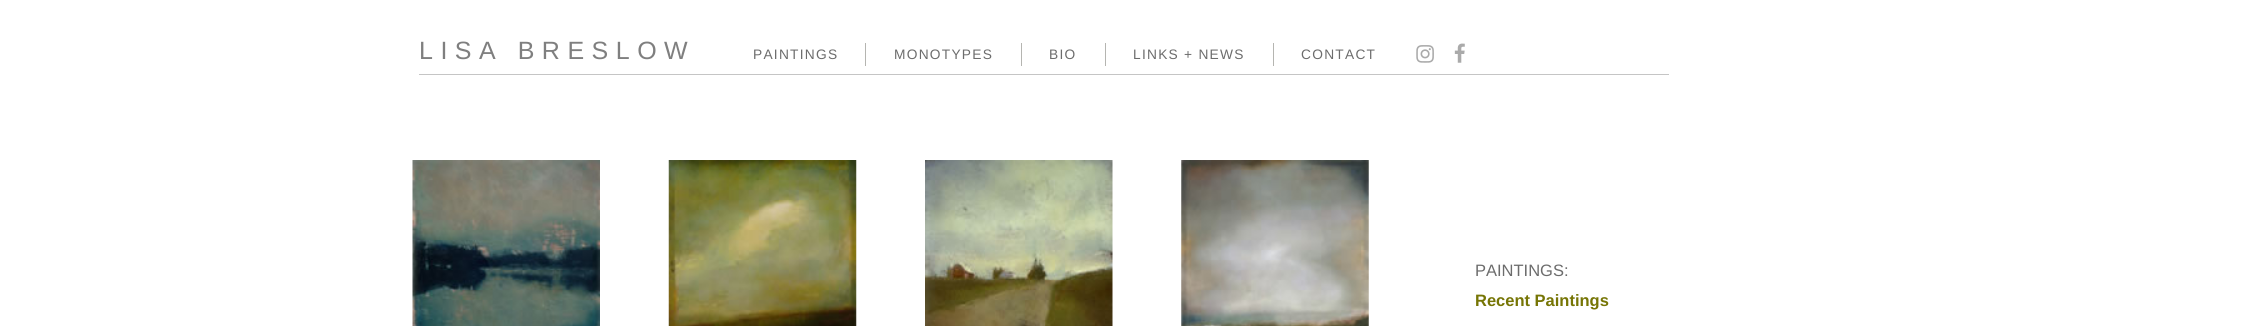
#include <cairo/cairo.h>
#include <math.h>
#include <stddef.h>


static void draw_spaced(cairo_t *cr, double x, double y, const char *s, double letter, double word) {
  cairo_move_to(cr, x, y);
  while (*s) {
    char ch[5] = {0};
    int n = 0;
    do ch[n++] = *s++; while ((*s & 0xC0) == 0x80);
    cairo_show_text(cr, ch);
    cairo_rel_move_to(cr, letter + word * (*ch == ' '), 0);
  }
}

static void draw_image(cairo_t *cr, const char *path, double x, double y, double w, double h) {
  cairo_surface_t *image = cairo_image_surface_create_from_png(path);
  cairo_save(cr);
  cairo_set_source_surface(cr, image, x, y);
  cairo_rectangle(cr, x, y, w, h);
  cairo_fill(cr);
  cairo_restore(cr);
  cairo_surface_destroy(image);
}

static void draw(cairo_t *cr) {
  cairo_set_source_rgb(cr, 1, 1, 1);
  cairo_paint(cr);
  cairo_set_source_rgb(cr, 197 / 255.0, 197 / 255.0, 197 / 255.0);
  cairo_rectangle(cr, 419, 74, 1250, 1);
  cairo_fill(cr);
  cairo_set_source_rgb(cr, 181 / 255.0, 181 / 255.0, 177 / 255.0);
  cairo_rectangle(cr, 865, 43, 1, 23);
  cairo_fill(cr);
  cairo_rectangle(cr, 1021, 43, 1, 23);
  cairo_fill(cr);
  cairo_rectangle(cr, 1105, 43, 1, 23);
  cairo_fill(cr);
  cairo_rectangle(cr, 1273, 43, 1, 23);
  cairo_fill(cr);
  draw_image(cr, "images/1.png", 1416, 45, 18, 18);
  draw_image(cr, "images/2.png", 1454, 43, 11, 20);
  draw_image(cr, "images/3.png", 412, 160, 188, 166);
  draw_image(cr, "images/4.png", 668, 160, 189, 166);
  draw_image(cr, "images/5.png", 925, 160, 188, 166);
  draw_image(cr, "images/6.png", 1181, 160, 188, 166);
  cairo_select_font_face(cr, "Liberation Sans", CAIRO_FONT_SLANT_NORMAL, CAIRO_FONT_WEIGHT_NORMAL);
  cairo_set_font_size(cr, 25);
  cairo_set_source_rgb(cr, 127 / 255.0, 127 / 255.0, 127 / 255.0);
  draw_spaced(cr, 419, 59, "LISA BRESLOW", 7.5, 0);
  cairo_set_font_size(cr, 13.75);
  cairo_set_source_rgb(cr, 108 / 255.0, 108 / 255.0, 108 / 255.0);
  draw_spaced(cr, 753, 59, "PAINTINGS", 1.25, 0);
  draw_spaced(cr, 894, 59, "MONOTYPES", 1.25, 0);
  draw_spaced(cr, 1049, 59, "BIO", 1.25, 0);
  draw_spaced(cr, 1133, 59, "LINKS + NEWS", 1.25, 0);
  draw_spaced(cr, 1301, 59, "CONTACT", 1.25, 0);
  cairo_set_font_size(cr, 16.5);
  cairo_move_to(cr, 1475, 276);
  cairo_show_text(cr, "PAINTINGS:");
  cairo_select_font_face(cr, "Liberation Sans", CAIRO_FONT_SLANT_NORMAL, CAIRO_FONT_WEIGHT_BOLD);
  cairo_set_source_rgb(cr, 118 / 255.0, 117 / 255.0, 5 / 255.0);
  cairo_move_to(cr, 1475, 306);
  cairo_show_text(cr, "Recent Paintings");
}

int main(void) {
  cairo_surface_t *surface = cairo_image_surface_create(CAIRO_FORMAT_RGB24, 2249, 326);
  cairo_t *cr = cairo_create(surface);
  cairo_font_options_t *options = cairo_font_options_create();
  cairo_font_options_set_hint_metrics(options, CAIRO_HINT_METRICS_OFF);
  cairo_font_options_set_hint_style(options, CAIRO_HINT_STYLE_NONE);
  cairo_set_font_options(cr, options);
  cairo_set_miter_limit(cr, 4);
  draw(cr);
  cairo_surface_write_to_png(surface, "out.png");
  cairo_font_options_destroy(options);
  cairo_destroy(cr);
  cairo_surface_destroy(surface);
  return 0;
}
